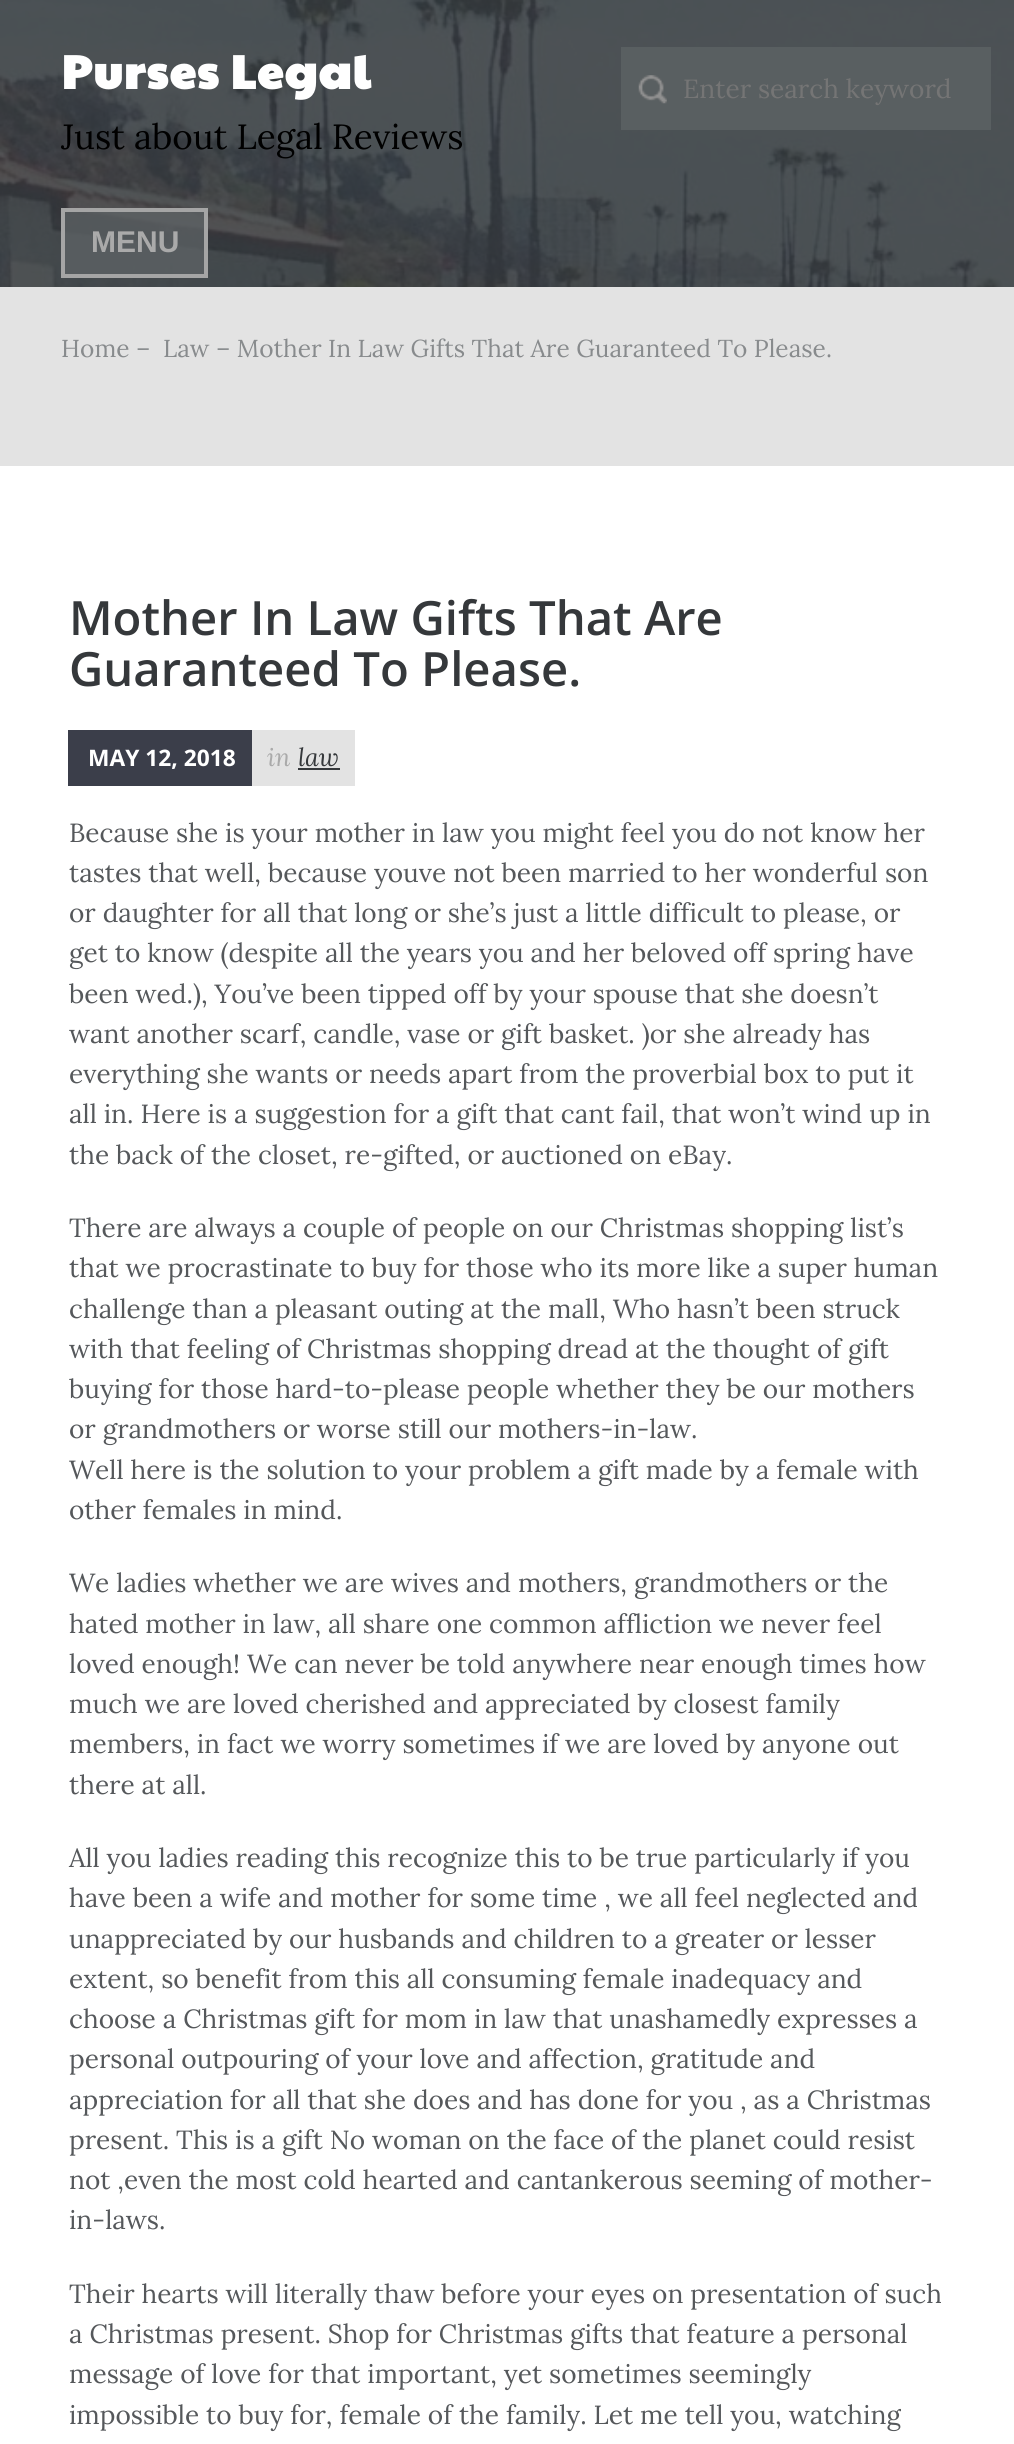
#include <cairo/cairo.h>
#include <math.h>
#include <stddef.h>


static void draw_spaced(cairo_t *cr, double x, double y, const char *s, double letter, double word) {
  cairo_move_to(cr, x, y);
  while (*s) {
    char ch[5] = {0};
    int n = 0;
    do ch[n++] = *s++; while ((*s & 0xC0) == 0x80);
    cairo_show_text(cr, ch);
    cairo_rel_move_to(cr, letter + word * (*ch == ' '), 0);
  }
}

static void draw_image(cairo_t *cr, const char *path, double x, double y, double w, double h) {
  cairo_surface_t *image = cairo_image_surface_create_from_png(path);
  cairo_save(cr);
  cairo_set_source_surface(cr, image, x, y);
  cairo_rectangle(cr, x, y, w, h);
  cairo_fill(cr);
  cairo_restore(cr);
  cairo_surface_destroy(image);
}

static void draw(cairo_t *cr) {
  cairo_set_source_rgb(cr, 1, 1, 1);
  cairo_paint(cr);
  draw_image(cr, "images/1.png", 0, 0, 1014, 287);
  cairo_set_source_rgb(cr, 89 / 255.0, 95 / 255.0, 97 / 255.0);
  cairo_rectangle(cr, 621, 47, 370, 83);
  cairo_fill(cr);
  draw_image(cr, "images/2.png", 638, 75, 29, 29);
  cairo_set_source_rgba(cr, 93 / 255.0, 99 / 255.0, 101 / 255.0, 0.75);
  cairo_rectangle(cr, 63, 210, 143, 66);
  cairo_fill_preserve(cr);
  cairo_set_source_rgb(cr, 165 / 255.0, 165 / 255.0, 165 / 255.0);
  cairo_set_line_width(cr, 4);
  cairo_stroke(cr);
  cairo_set_source_rgb(cr, 227 / 255.0, 227 / 255.0, 227 / 255.0);
  cairo_rectangle(cr, 0, 287, 1014, 179);
  cairo_fill(cr);
  cairo_set_source_rgb(cr, 59 / 255.0, 62 / 255.0, 74 / 255.0);
  cairo_rectangle(cr, 68, 730, 184, 56);
  cairo_fill(cr);
  cairo_set_source_rgb(cr, 227 / 255.0, 227 / 255.0, 227 / 255.0);
  cairo_rectangle(cr, 252, 730, 103, 56);
  cairo_fill(cr);
  cairo_set_source_rgb(cr, 53 / 255.0, 56 / 255.0, 59 / 255.0);
  cairo_rectangle(cr, 298, 768, 42, 2);
  cairo_fill(cr);
  cairo_select_font_face(cr, "Paytone One", CAIRO_FONT_SLANT_NORMAL, CAIRO_FONT_WEIGHT_BOLD);
  cairo_set_font_size(cr, 47.25);
  cairo_set_source_rgb(cr, 1, 1, 1);
  draw_spaced(cr, 61, 89, "Purses Legal", 1.25, 0);
  cairo_select_font_face(cr, "Lora", CAIRO_FONT_SLANT_NORMAL, CAIRO_FONT_WEIGHT_NORMAL);
  cairo_set_font_size(cr, 35);
  cairo_set_source_rgb(cr, 0, 0, 0);
  cairo_move_to(cr, 61, 149);
  cairo_show_text(cr, "Just about Legal Reviews");
  cairo_set_font_size(cr, 26.25);
  cairo_set_source_rgb(cr, 117 / 255.0, 117 / 255.0, 117 / 255.0);
  cairo_move_to(cr, 683, 98);
  cairo_show_text(cr, "Enter search keyword");
  cairo_select_font_face(cr, "Liberation Sans", CAIRO_FONT_SLANT_NORMAL, CAIRO_FONT_WEIGHT_BOLD);
  cairo_set_font_size(cr, 30);
  cairo_set_source_rgb(cr, 170 / 255.0, 170 / 255.0, 170 / 255.0);
  cairo_move_to(cr, 91, 252);
  cairo_show_text(cr, "MENU");
  cairo_select_font_face(cr, "Lora", CAIRO_FONT_SLANT_NORMAL, CAIRO_FONT_WEIGHT_NORMAL);
  cairo_set_font_size(cr, 24.5);
  cairo_set_source_rgb(cr, 136 / 255.0, 139 / 255.0, 141 / 255.0);
  cairo_move_to(cr, 61, 357);
  cairo_show_text(cr, "Home –");
  cairo_move_to(cr, 163, 357);
  cairo_show_text(cr, "Law – Mother In Law Gifts That Are Guaranteed To Please.");
  cairo_select_font_face(cr, "Open Sans SemiBold", CAIRO_FONT_SLANT_NORMAL, CAIRO_FONT_WEIGHT_NORMAL);
  cairo_set_font_size(cr, 47.25);
  cairo_set_source_rgb(cr, 53 / 255.0, 56 / 255.0, 59 / 255.0);
  cairo_move_to(cr, 69, 635);
  cairo_show_text(cr, "Mother In Law Gifts That Are");
  cairo_move_to(cr, 69, 686);
  cairo_show_text(cr, "Guaranteed To Please.");
  cairo_select_font_face(cr, "Open Sans", CAIRO_FONT_SLANT_NORMAL, CAIRO_FONT_WEIGHT_BOLD);
  cairo_set_font_size(cr, 22.75);
  cairo_set_source_rgb(cr, 1, 1, 1);
  cairo_move_to(cr, 88, 766);
  cairo_show_text(cr, "MAY 12, 2018");
  cairo_select_font_face(cr, "Lora", CAIRO_FONT_SLANT_ITALIC, CAIRO_FONT_WEIGHT_NORMAL);
  cairo_set_font_size(cr, 25);
  cairo_set_source_rgb(cr, 170 / 255.0, 170 / 255.0, 170 / 255.0);
  cairo_move_to(cr, 267, 766);
  cairo_show_text(cr, "in");
  cairo_set_source_rgb(cr, 53 / 255.0, 56 / 255.0, 59 / 255.0);
  cairo_move_to(cr, 298, 766);
  cairo_show_text(cr, "law");
  cairo_select_font_face(cr, "Lora", CAIRO_FONT_SLANT_NORMAL, CAIRO_FONT_WEIGHT_NORMAL);
  cairo_set_font_size(cr, 26.25);
  cairo_set_source_rgb(cr, 85 / 255.0, 88 / 255.0, 91 / 255.0);
  cairo_move_to(cr, 69, 842);
  cairo_show_text(cr, "Because she is your mother in law you might feel you do not know her");
  cairo_move_to(cr, 69, 882);
  cairo_show_text(cr, "tastes that well, because youve not been married to her wonderful son");
  cairo_move_to(cr, 69, 922);
  cairo_show_text(cr, "or daughter for all that long or she’s just a little difficult to please, or");
  cairo_move_to(cr, 69, 962);
  cairo_show_text(cr, "get to know (despite all the years you and her beloved off spring have");
  cairo_move_to(cr, 69, 1003);
  cairo_show_text(cr, "been wed.), You’ve been tipped off by your spouse that she doesn’t");
  cairo_move_to(cr, 69, 1043);
  cairo_show_text(cr, "want another scarf, candle, vase or gift basket. )or she already has");
  cairo_move_to(cr, 69, 1083);
  cairo_show_text(cr, "everything she wants or needs apart from the proverbial box to put it");
  cairo_move_to(cr, 69, 1123);
  cairo_show_text(cr, "all in. Here is a suggestion for a gift that cant fail, that won’t wind up in");
  cairo_move_to(cr, 69, 1164);
  cairo_show_text(cr, "the back of the closet, re-gifted, or auctioned on eBay.");
  cairo_move_to(cr, 69, 1237);
  cairo_show_text(cr, "There are always a couple of people on our Christmas shopping list’s");
  cairo_move_to(cr, 69, 1277);
  cairo_show_text(cr, "that we procrastinate to buy for those who its more like a super human");
  cairo_move_to(cr, 69, 1318);
  cairo_show_text(cr, "challenge than a pleasant outing at the mall, Who hasn’t been struck");
  cairo_move_to(cr, 69, 1358);
  cairo_show_text(cr, "with that feeling of Christmas shopping dread at the thought of gift");
  cairo_move_to(cr, 69, 1398);
  cairo_show_text(cr, "buying for those hard-to-please people whether they be our mothers");
  cairo_move_to(cr, 69, 1438);
  cairo_show_text(cr, "or grandmothers or worse still our mothers-in-law.");
  cairo_move_to(cr, 69, 1479);
  cairo_show_text(cr, "Well here is the solution to your problem a gift made by a female with");
  cairo_move_to(cr, 69, 1519);
  cairo_show_text(cr, "other females in mind.");
  cairo_move_to(cr, 69, 1592);
  cairo_show_text(cr, "We ladies whether we are wives and mothers, grandmothers or the");
  cairo_move_to(cr, 69, 1633);
  cairo_show_text(cr, "hated mother in law, all share one common affliction we never feel");
  cairo_move_to(cr, 69, 1673);
  cairo_show_text(cr, "loved enough! We can never be told anywhere near enough times how");
  cairo_move_to(cr, 69, 1713);
  cairo_show_text(cr, "much we are loved cherished and appreciated by closest family");
  cairo_move_to(cr, 69, 1753);
  cairo_show_text(cr, "members, in fact we worry sometimes if we are loved by anyone out");
  cairo_move_to(cr, 69, 1794);
  cairo_show_text(cr, "there at all.");
  cairo_move_to(cr, 69, 1867);
  cairo_show_text(cr, "All you ladies reading this recognize this to be true particularly if you");
  cairo_move_to(cr, 69, 1907);
  cairo_show_text(cr, "have been a wife and mother for some time , we all feel neglected and");
  cairo_move_to(cr, 69, 1948);
  cairo_show_text(cr, "unappreciated by our husbands and children to a greater or lesser");
  cairo_move_to(cr, 69, 1988);
  cairo_show_text(cr, "extent, so benefit from this all consuming female inadequacy and");
  cairo_move_to(cr, 69, 2028);
  cairo_show_text(cr, "choose a Christmas gift for mom in law that unashamedly expresses a");
  cairo_move_to(cr, 69, 2068);
  cairo_show_text(cr, "personal outpouring of your love and affection, gratitude and");
  cairo_move_to(cr, 69, 2109);
  cairo_show_text(cr, "appreciation for all that she does and has done for you , as a Christmas");
  cairo_move_to(cr, 69, 2149);
  cairo_show_text(cr, "present. This is a gift No woman on the face of the planet could resist");
  cairo_move_to(cr, 69, 2189);
  cairo_show_text(cr, "not ,even the most cold hearted and cantankerous seeming of mother-");
  cairo_move_to(cr, 69, 2229);
  cairo_show_text(cr, "in-laws.");
  cairo_move_to(cr, 69, 2303);
  cairo_show_text(cr, "Their hearts will literally thaw before your eyes on presentation of such");
  cairo_move_to(cr, 69, 2343);
  cairo_show_text(cr, "a Christmas present. Shop for Christmas gifts that feature a personal");
  cairo_move_to(cr, 69, 2383);
  cairo_show_text(cr, "message of love for that important, yet sometimes seemingly");
  cairo_move_to(cr, 69, 2424);
  cairo_show_text(cr, "impossible to buy for, female of the family. Let me tell you, watching");
}

int main(void) {
  cairo_surface_t *surface = cairo_image_surface_create(CAIRO_FORMAT_RGB24, 1014, 2444);
  cairo_t *cr = cairo_create(surface);
  cairo_font_options_t *options = cairo_font_options_create();
  cairo_font_options_set_hint_metrics(options, CAIRO_HINT_METRICS_OFF);
  cairo_font_options_set_hint_style(options, CAIRO_HINT_STYLE_NONE);
  cairo_set_font_options(cr, options);
  cairo_set_miter_limit(cr, 4);
  draw(cr);
  cairo_surface_write_to_png(surface, "out.png");
  cairo_font_options_destroy(options);
  cairo_destroy(cr);
  cairo_surface_destroy(surface);
  return 0;
}
